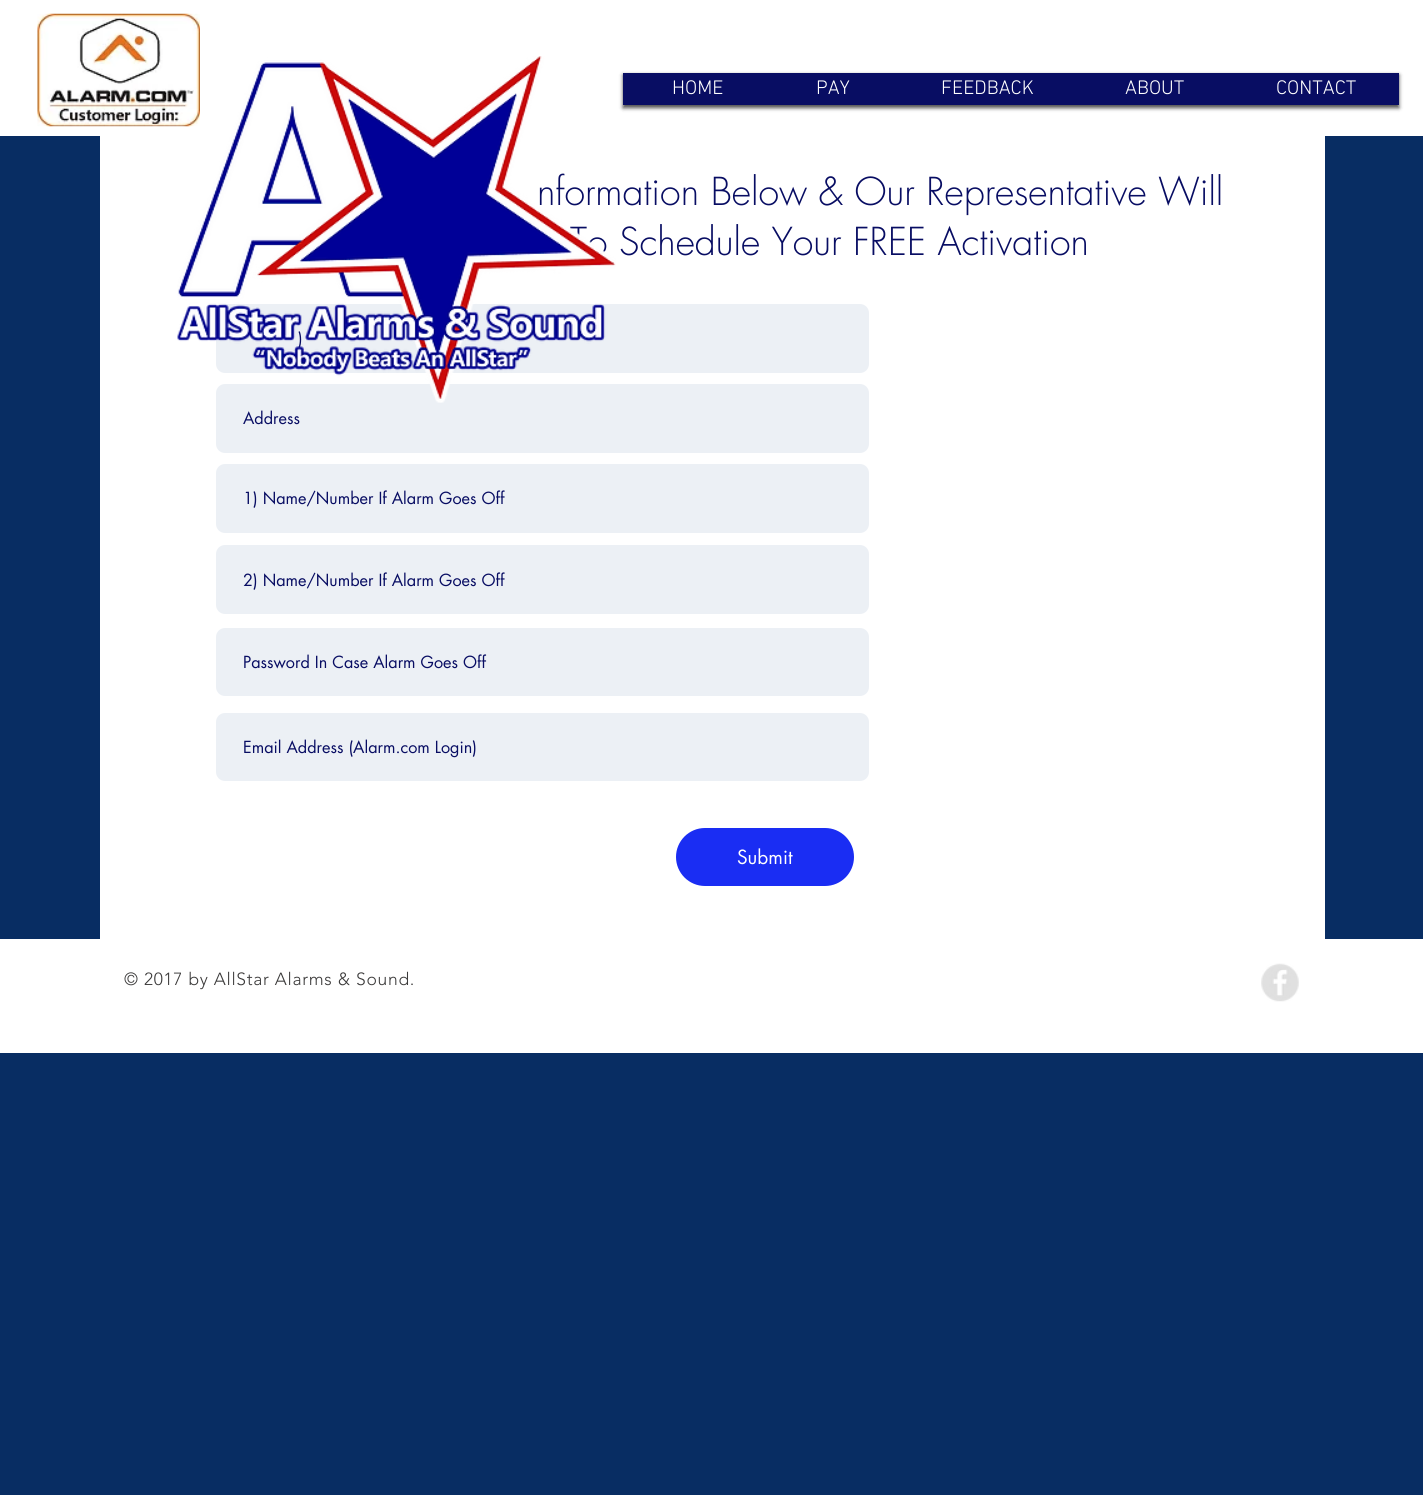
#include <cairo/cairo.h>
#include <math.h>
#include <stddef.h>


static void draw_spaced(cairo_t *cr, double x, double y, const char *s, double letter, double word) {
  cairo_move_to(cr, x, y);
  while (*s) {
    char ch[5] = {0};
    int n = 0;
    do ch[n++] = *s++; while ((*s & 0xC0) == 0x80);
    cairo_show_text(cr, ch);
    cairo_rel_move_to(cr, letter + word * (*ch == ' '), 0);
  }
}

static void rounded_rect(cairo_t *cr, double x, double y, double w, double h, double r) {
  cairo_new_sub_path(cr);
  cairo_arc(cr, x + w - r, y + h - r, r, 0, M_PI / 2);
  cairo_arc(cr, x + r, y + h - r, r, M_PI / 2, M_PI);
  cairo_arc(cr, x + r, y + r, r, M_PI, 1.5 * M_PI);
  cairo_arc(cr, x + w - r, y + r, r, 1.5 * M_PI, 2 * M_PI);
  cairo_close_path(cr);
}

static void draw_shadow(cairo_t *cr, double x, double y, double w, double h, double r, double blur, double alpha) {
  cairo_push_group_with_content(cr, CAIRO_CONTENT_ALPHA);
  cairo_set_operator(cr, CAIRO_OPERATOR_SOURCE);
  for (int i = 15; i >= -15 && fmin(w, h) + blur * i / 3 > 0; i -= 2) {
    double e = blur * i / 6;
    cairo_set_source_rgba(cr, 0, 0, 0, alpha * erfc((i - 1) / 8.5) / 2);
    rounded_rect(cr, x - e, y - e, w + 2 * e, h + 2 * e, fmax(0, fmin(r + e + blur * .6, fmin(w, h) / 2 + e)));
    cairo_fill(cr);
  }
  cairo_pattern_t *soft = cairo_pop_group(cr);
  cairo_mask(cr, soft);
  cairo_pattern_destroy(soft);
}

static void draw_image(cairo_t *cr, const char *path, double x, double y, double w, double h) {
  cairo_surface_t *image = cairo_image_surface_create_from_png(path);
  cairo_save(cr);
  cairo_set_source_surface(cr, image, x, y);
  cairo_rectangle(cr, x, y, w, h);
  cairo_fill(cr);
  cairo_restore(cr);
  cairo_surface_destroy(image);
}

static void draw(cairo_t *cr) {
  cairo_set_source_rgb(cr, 8 / 255.0, 45 / 255.0, 99 / 255.0);
  cairo_paint(cr);
  cairo_set_source_rgb(cr, 1, 1, 1);
  cairo_rectangle(cr, 0, 0, 1423, 136);
  cairo_fill(cr);
  cairo_set_source_rgb(cr, 0, 0, 0);
  draw_shadow(cr, 623, 75, 776, 33, 0, 2, 0.7);
  cairo_set_source_rgb(cr, 8 / 255.0, 13 / 255.0, 99 / 255.0);
  cairo_rectangle(cr, 623, 73, 776, 32);
  cairo_fill(cr);
  cairo_set_source_rgb(cr, 1, 1, 1);
  cairo_rectangle(cr, 100, 136, 1225, 803);
  cairo_fill(cr);
  cairo_set_source_rgb(cr, 236 / 255.0, 240 / 255.0, 245 / 255.0);
  rounded_rect(cr, 216, 304, 653, 69, 9);
  cairo_fill(cr);
  rounded_rect(cr, 216, 384, 653, 69, 9);
  cairo_fill(cr);
  rounded_rect(cr, 216, 464, 653, 69, 9);
  cairo_fill(cr);
  rounded_rect(cr, 216, 545, 653, 69, 9);
  cairo_fill(cr);
  rounded_rect(cr, 216, 628, 653, 68, 9);
  cairo_fill(cr);
  rounded_rect(cr, 216, 713, 653, 68, 9);
  cairo_fill(cr);
  cairo_set_source_rgb(cr, 26 / 255.0, 45 / 255.0, 243 / 255.0);
  rounded_rect(cr, 676, 828, 178, 58, 29);
  cairo_fill(cr);
  cairo_set_source_rgb(cr, 1, 1, 1);
  cairo_rectangle(cr, 0, 939, 1423, 114);
  cairo_fill(cr);
  draw_image(cr, "images/3.png", 1261, 963, 38, 39);
  cairo_select_font_face(cr, "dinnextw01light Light", CAIRO_FONT_SLANT_NORMAL, CAIRO_FONT_WEIGHT_NORMAL);
  cairo_set_font_size(cr, 20);
  cairo_move_to(cr, 672, 94);
  cairo_show_text(cr, "HOME");
  cairo_move_to(cr, 816, 94);
  cairo_show_text(cr, "PAY");
  cairo_move_to(cr, 941, 94);
  cairo_show_text(cr, "FEEDBACK");
  cairo_move_to(cr, 1125, 94);
  cairo_show_text(cr, "ABOUT");
  cairo_move_to(cr, 1276, 94);
  cairo_show_text(cr, "CONTACT");
  cairo_select_font_face(cr, "futura Light", CAIRO_FONT_SLANT_NORMAL, CAIRO_FONT_WEIGHT_NORMAL);
  cairo_set_font_size(cr, 37.5);
  cairo_set_source_rgb(cr, 8 / 255.0, 13 / 255.0, 99 / 255.0);
  cairo_move_to(cr, 537, 205);
  cairo_show_text(cr, "nformation Below & Our Representative Will");
  cairo_move_to(cr, 570, 255);
  cairo_show_text(cr, "To Schedule Your FREE Activation");
  cairo_select_font_face(cr, "futura", CAIRO_FONT_SLANT_NORMAL, CAIRO_FONT_WEIGHT_NORMAL);
  cairo_set_font_size(cr, 16.25);
  cairo_move_to(cr, 298, 344);
  cairo_show_text(cr, ")");
  draw_image(cr, "images/2.png", 177, 56, 439, 347);
  draw_image(cr, "images/1.png", 37, 13, 163, 114);
  cairo_move_to(cr, 243, 424);
  cairo_show_text(cr, "Address");
  cairo_move_to(cr, 243, 504);
  cairo_show_text(cr, "1) Name/Number If Alarm Goes Off");
  cairo_move_to(cr, 243, 586);
  cairo_show_text(cr, "2) Name/Number If Alarm Goes Off");
  cairo_move_to(cr, 243, 668);
  cairo_show_text(cr, "Password In Case Alarm Goes Off");
  cairo_move_to(cr, 243, 753);
  cairo_show_text(cr, "Email Address (Alarm.com Login)");
  cairo_set_font_size(cr, 19);
  cairo_set_source_rgb(cr, 1, 1, 1);
  cairo_move_to(cr, 737, 864);
  cairo_show_text(cr, "Submit");
  cairo_select_font_face(cr, "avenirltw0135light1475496 Light", CAIRO_FONT_SLANT_NORMAL, CAIRO_FONT_WEIGHT_NORMAL);
  cairo_set_font_size(cr, 17.5);
  cairo_set_source_rgb(cr, 59 / 255.0, 58 / 255.0, 58 / 255.0);
  draw_spaced(cr, 124, 985, "© 2017 by AllStar Alarms & Sound.", 0.7, 0);
}

int main(void) {
  cairo_surface_t *surface = cairo_image_surface_create(CAIRO_FORMAT_RGB24, 1423, 1495);
  cairo_t *cr = cairo_create(surface);
  cairo_font_options_t *options = cairo_font_options_create();
  cairo_font_options_set_hint_metrics(options, CAIRO_HINT_METRICS_OFF);
  cairo_font_options_set_hint_style(options, CAIRO_HINT_STYLE_NONE);
  cairo_set_font_options(cr, options);
  cairo_set_miter_limit(cr, 4);
  draw(cr);
  cairo_surface_write_to_png(surface, "out.png");
  cairo_font_options_destroy(options);
  cairo_destroy(cr);
  cairo_surface_destroy(surface);
  return 0;
}
